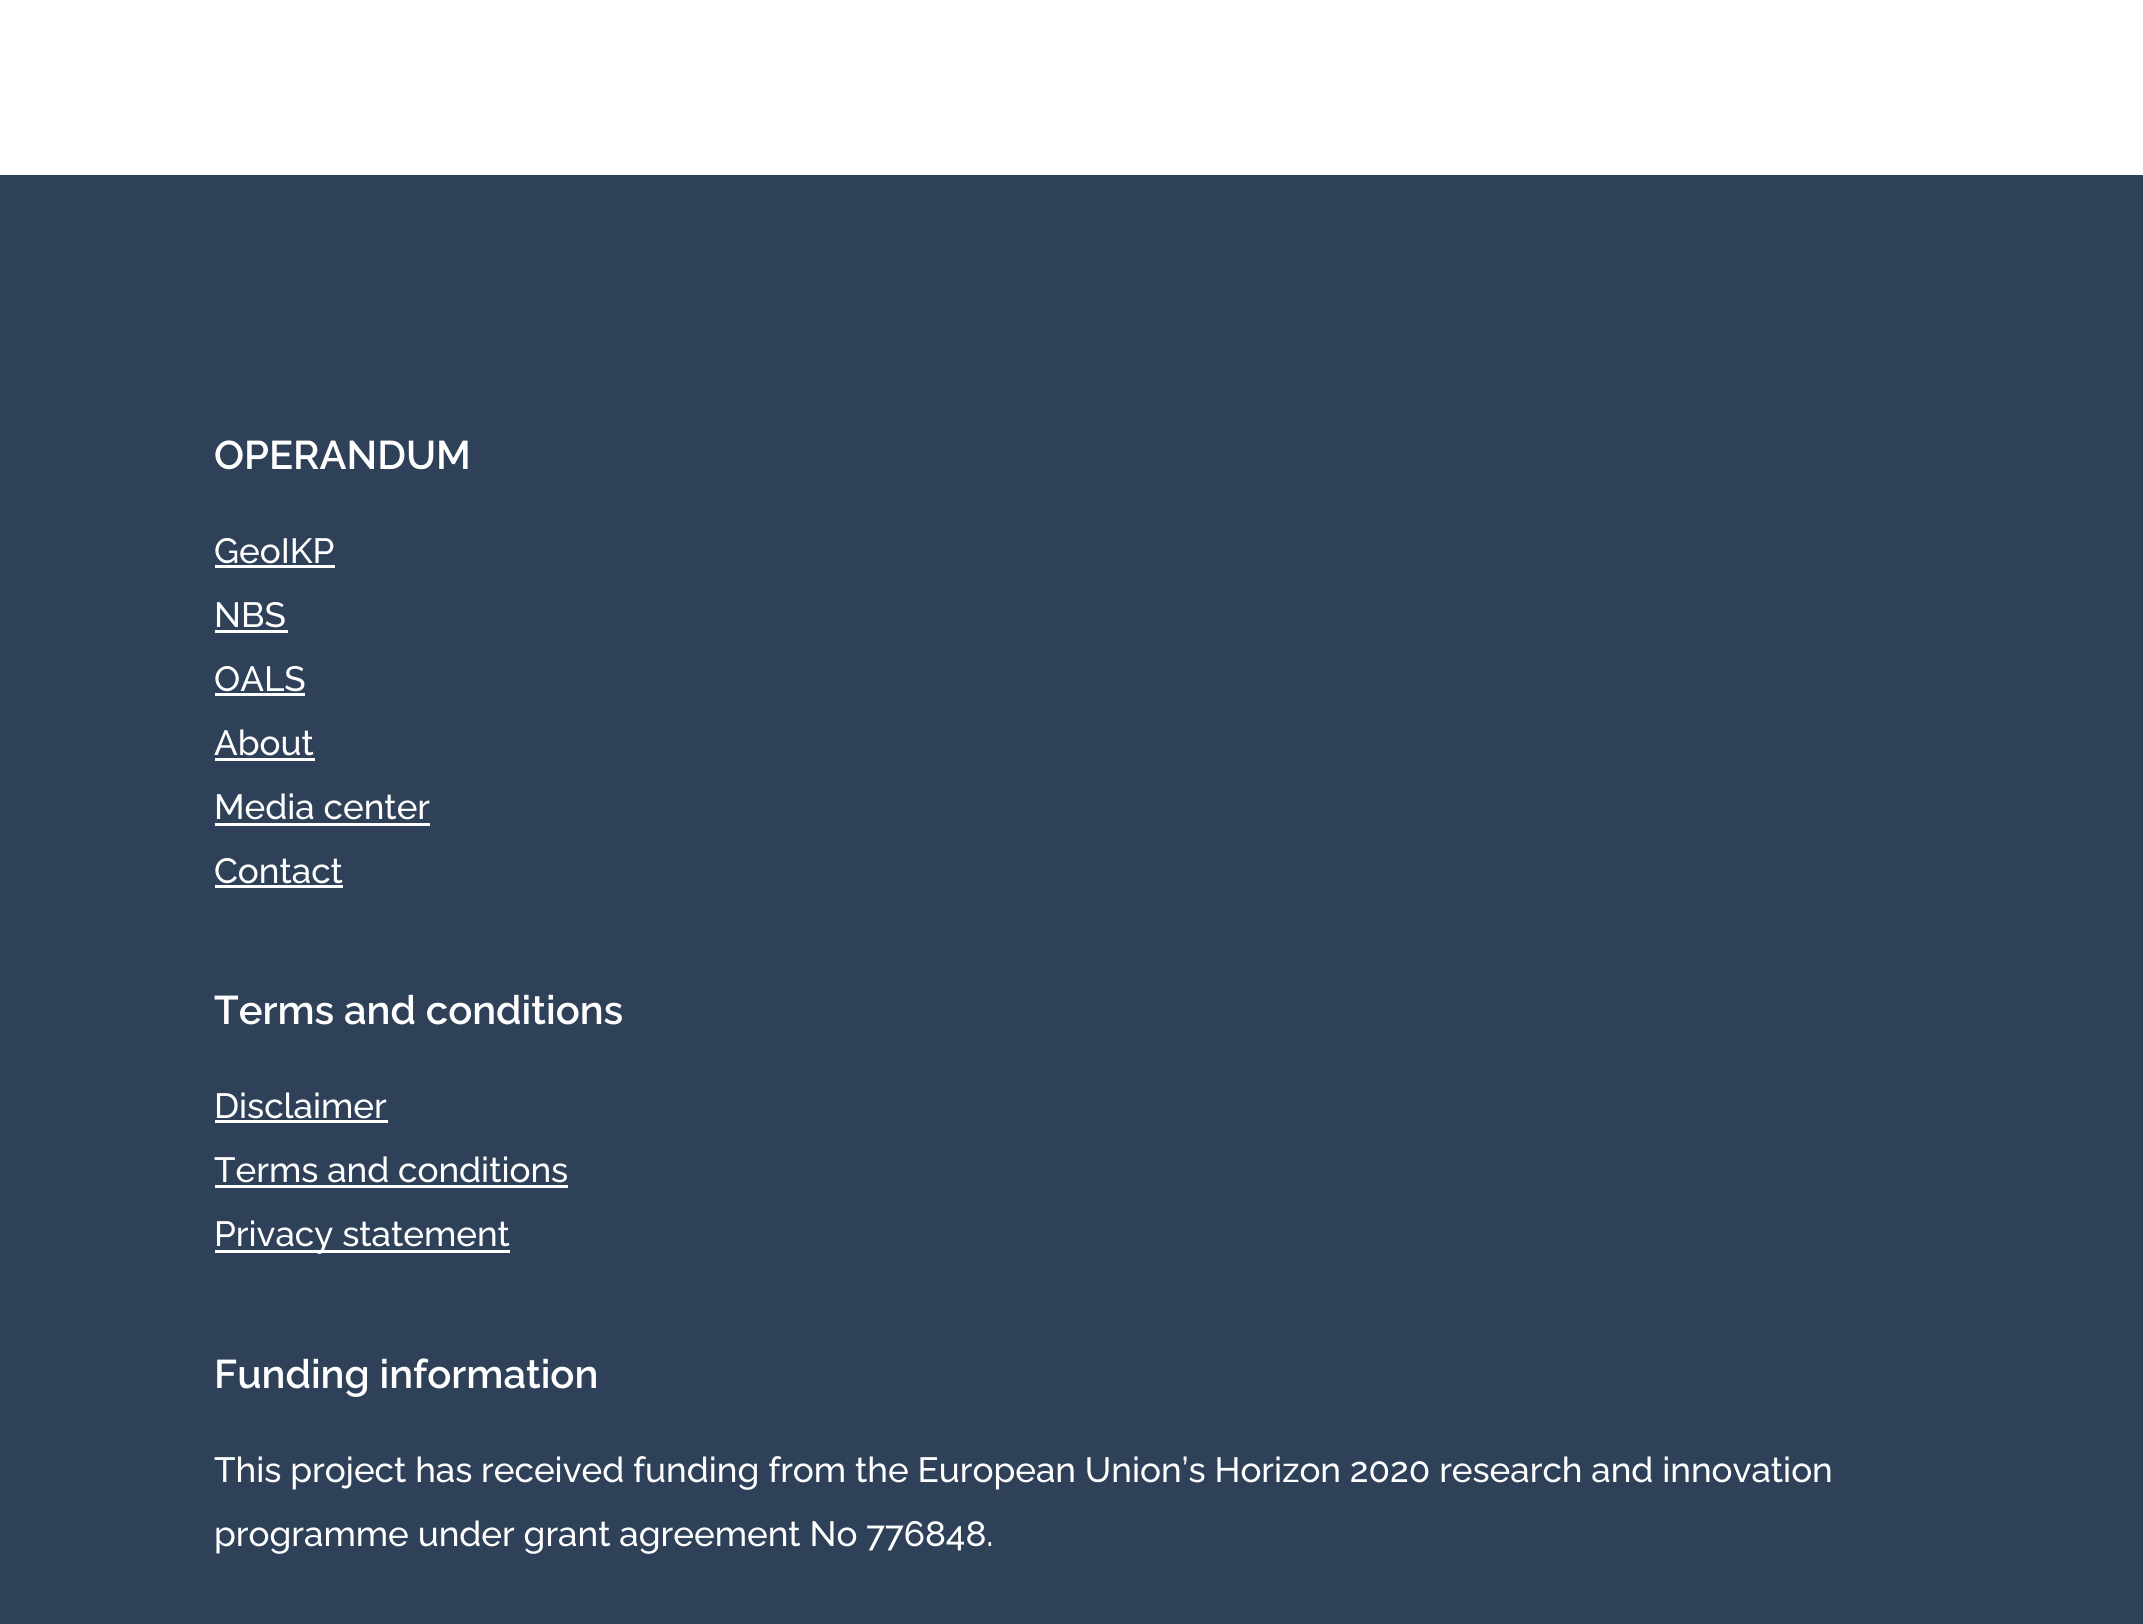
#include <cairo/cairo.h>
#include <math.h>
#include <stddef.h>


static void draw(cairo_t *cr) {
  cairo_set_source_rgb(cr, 1, 1, 1);
  cairo_paint(cr);
  cairo_set_source_rgb(cr, 47 / 255.0, 65 / 255.0, 89 / 255.0);
  cairo_rectangle(cr, 0, 175, 2143, 1449);
  cairo_fill(cr);
  cairo_set_source_rgb(cr, 1, 1, 1);
  cairo_rectangle(cr, 215, 565, 120, 3);
  cairo_fill(cr);
  cairo_rectangle(cr, 215, 630, 73, 3);
  cairo_fill(cr);
  cairo_rectangle(cr, 215, 693, 90, 3);
  cairo_fill(cr);
  cairo_rectangle(cr, 215, 758, 100, 3);
  cairo_fill(cr);
  cairo_rectangle(cr, 215, 823, 215, 3);
  cairo_fill(cr);
  cairo_rectangle(cr, 215, 885, 128, 3);
  cairo_fill(cr);
  cairo_rectangle(cr, 215, 1120, 173, 3);
  cairo_fill(cr);
  cairo_rectangle(cr, 215, 1185, 353, 3);
  cairo_fill(cr);
  cairo_rectangle(cr, 215, 1250, 295, 3);
  cairo_fill(cr);
  cairo_select_font_face(cr, "Raleway SemiBold", CAIRO_FONT_SLANT_NORMAL, CAIRO_FONT_WEIGHT_NORMAL);
  cairo_set_font_size(cr, 40);
  cairo_move_to(cr, 214, 469);
  cairo_show_text(cr, "OPERANDUM");
  cairo_select_font_face(cr, "Raleway Medium", CAIRO_FONT_SLANT_NORMAL, CAIRO_FONT_WEIGHT_NORMAL);
  cairo_set_font_size(cr, 35);
  cairo_move_to(cr, 214, 563);
  cairo_show_text(cr, "GeoIKP");
  cairo_move_to(cr, 214, 627);
  cairo_show_text(cr, "NBS");
  cairo_move_to(cr, 214, 691);
  cairo_show_text(cr, "OALS");
  cairo_move_to(cr, 214, 755);
  cairo_show_text(cr, "About");
  cairo_move_to(cr, 214, 819);
  cairo_show_text(cr, "Media center");
  cairo_move_to(cr, 214, 883);
  cairo_show_text(cr, "Contact");
  cairo_select_font_face(cr, "Raleway SemiBold", CAIRO_FONT_SLANT_NORMAL, CAIRO_FONT_WEIGHT_NORMAL);
  cairo_set_font_size(cr, 40);
  cairo_move_to(cr, 214, 1024);
  cairo_show_text(cr, "Terms and conditions");
  cairo_select_font_face(cr, "Raleway Medium", CAIRO_FONT_SLANT_NORMAL, CAIRO_FONT_WEIGHT_NORMAL);
  cairo_set_font_size(cr, 35);
  cairo_move_to(cr, 214, 1118);
  cairo_show_text(cr, "Disclaimer");
  cairo_move_to(cr, 214, 1182);
  cairo_show_text(cr, "Terms and conditions");
  cairo_move_to(cr, 214, 1246);
  cairo_show_text(cr, "Privacy statement");
  cairo_select_font_face(cr, "Raleway SemiBold", CAIRO_FONT_SLANT_NORMAL, CAIRO_FONT_WEIGHT_NORMAL);
  cairo_set_font_size(cr, 40);
  cairo_move_to(cr, 214, 1388);
  cairo_show_text(cr, "Funding information");
  cairo_select_font_face(cr, "Raleway Medium", CAIRO_FONT_SLANT_NORMAL, CAIRO_FONT_WEIGHT_NORMAL);
  cairo_set_font_size(cr, 35);
  cairo_move_to(cr, 214, 1482);
  cairo_show_text(cr, "This project has received funding from the European Union’s Horizon 2020 research and innovation");
  cairo_move_to(cr, 214, 1546);
  cairo_show_text(cr, "programme under grant agreement No 776848.");
}

int main(void) {
  cairo_surface_t *surface = cairo_image_surface_create(CAIRO_FORMAT_RGB24, 2143, 1624);
  cairo_t *cr = cairo_create(surface);
  cairo_font_options_t *options = cairo_font_options_create();
  cairo_font_options_set_hint_metrics(options, CAIRO_HINT_METRICS_OFF);
  cairo_font_options_set_hint_style(options, CAIRO_HINT_STYLE_NONE);
  cairo_set_font_options(cr, options);
  cairo_set_miter_limit(cr, 4);
  draw(cr);
  cairo_surface_write_to_png(surface, "out.png");
  cairo_font_options_destroy(options);
  cairo_destroy(cr);
  cairo_surface_destroy(surface);
  return 0;
}
